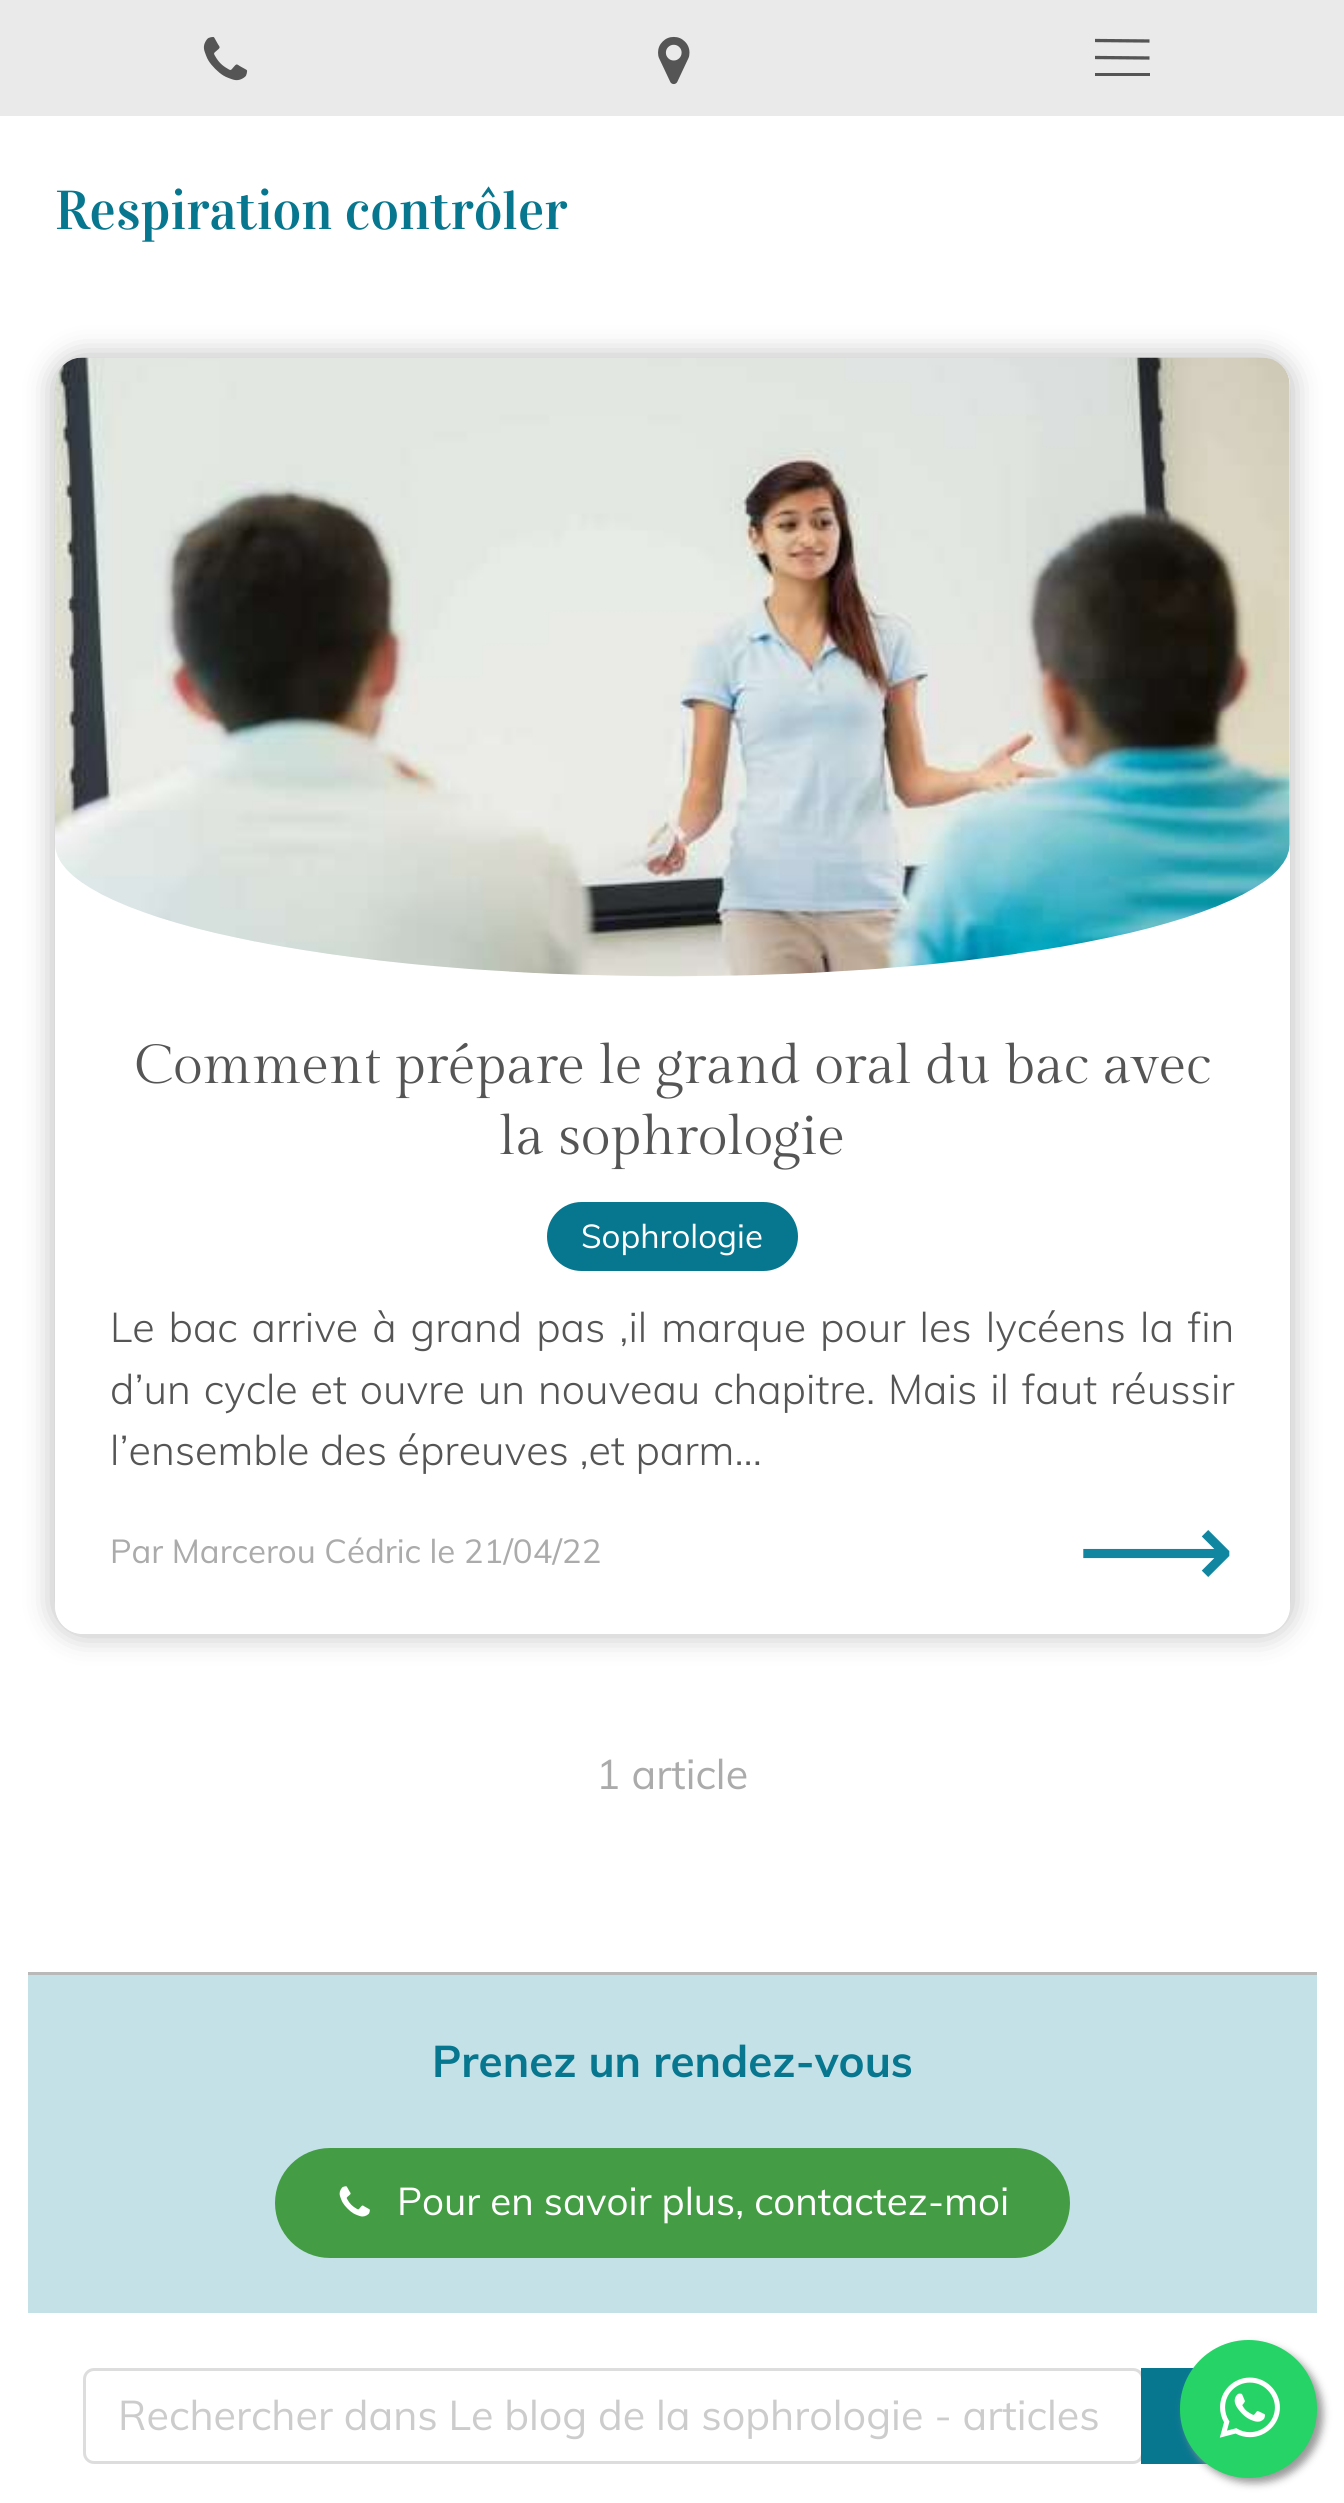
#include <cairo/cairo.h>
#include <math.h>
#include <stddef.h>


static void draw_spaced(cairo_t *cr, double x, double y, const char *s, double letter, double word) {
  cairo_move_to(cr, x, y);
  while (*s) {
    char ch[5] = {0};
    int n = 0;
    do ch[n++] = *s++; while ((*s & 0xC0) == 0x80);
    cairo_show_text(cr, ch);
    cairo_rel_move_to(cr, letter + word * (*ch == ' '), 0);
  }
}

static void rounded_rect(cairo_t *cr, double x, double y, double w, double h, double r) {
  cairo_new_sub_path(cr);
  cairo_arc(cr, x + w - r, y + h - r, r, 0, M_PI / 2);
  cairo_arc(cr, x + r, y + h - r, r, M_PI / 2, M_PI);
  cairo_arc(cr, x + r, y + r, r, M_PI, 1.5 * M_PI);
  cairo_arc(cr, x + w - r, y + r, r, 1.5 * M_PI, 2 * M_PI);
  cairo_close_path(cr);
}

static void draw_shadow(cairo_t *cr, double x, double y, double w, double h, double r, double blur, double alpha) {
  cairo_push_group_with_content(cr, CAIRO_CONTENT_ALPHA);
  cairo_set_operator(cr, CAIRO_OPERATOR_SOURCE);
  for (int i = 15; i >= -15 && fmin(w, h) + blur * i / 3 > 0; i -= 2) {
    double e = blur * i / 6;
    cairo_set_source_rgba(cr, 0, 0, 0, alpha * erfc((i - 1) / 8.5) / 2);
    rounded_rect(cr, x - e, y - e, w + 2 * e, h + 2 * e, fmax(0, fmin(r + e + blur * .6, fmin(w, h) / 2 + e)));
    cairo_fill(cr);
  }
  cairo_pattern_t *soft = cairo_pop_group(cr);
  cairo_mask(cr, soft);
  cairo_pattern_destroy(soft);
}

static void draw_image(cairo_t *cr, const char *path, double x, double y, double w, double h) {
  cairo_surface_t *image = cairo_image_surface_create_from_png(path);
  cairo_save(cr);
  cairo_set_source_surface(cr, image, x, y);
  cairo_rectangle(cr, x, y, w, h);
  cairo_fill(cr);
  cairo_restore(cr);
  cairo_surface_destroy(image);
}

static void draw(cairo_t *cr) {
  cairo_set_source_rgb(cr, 1, 1, 1);
  cairo_paint(cr);
  cairo_set_source_rgb(cr, 234 / 255.0, 234 / 255.0, 234 / 255.0);
  cairo_rectangle(cr, 0, 0, 1344, 116);
  cairo_fill(cr);
  draw_image(cr, "images/1.png", 203, 37, 45, 44);
  draw_image(cr, "images/2.png", 658, 36, 32, 49);
  cairo_save(cr);
  cairo_rectangle(cr, 1095, 30, 55, 55);
  cairo_clip(cr);
  cairo_new_path(cr);
  cairo_move_to(cr, 1094.5, 57.5);
  cairo_line_to(cr, 1149.5, 58);
  cairo_move_to(cr, 1094.5, 40.5);
  cairo_line_to(cr, 1149.5, 41);
  cairo_set_source_rgb(cr, 85 / 255.0, 85 / 255.0, 85 / 255.0);
  cairo_set_line_width(cr, 3.3);
  cairo_stroke(cr);
  cairo_restore(cr);
  cairo_set_source_rgb(cr, 85 / 255.0, 85 / 255.0, 85 / 255.0);
  cairo_rectangle(cr, 1095, 73, 55, 3);
  cairo_fill(cr);
  cairo_set_source_rgb(cr, 185 / 255.0, 185 / 255.0, 185 / 255.0);
  cairo_rectangle(cr, 28, 1972, 1289, 3);
  cairo_fill(cr);
  cairo_save(cr);
  cairo_set_fill_rule(cr, CAIRO_FILL_RULE_EVEN_ODD);
  cairo_new_path(cr);
  cairo_move_to(cr, 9, 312);
  cairo_line_to(cr, 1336, 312);
  cairo_line_to(cr, 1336, 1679);
  cairo_line_to(cr, 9, 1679);
  cairo_close_path(cr);
  cairo_move_to(cr, 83, 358);
  cairo_line_to(cr, 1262, 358);
  cairo_curve_to(cr, 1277.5, 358, 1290, 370.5, 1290, 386);
  cairo_line_to(cr, 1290, 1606);
  cairo_curve_to(cr, 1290, 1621.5, 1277.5, 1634, 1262, 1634);
  cairo_line_to(cr, 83, 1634);
  cairo_curve_to(cr, 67.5, 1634, 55, 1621.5, 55, 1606);
  cairo_line_to(cr, 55, 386);
  cairo_curve_to(cr, 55, 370.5, 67.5, 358, 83, 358);
  cairo_close_path(cr);
  cairo_clip(cr);
  cairo_set_source_rgb(cr, 0, 0, 0);
  draw_shadow(cr, 52, 355, 1241, 1281, 30, 14, 0.25);
  cairo_restore(cr);
  cairo_set_source_rgb(cr, 250 / 255.0, 250 / 255.0, 250 / 255.0);
  cairo_new_path(cr);
  cairo_move_to(cr, 83, 358);
  cairo_curve_to(cr, 68, 358, 55, 371, 55, 386);
  cairo_line_to(cr, 55, 844);
  cairo_curve_to(cr, 55, 917, 331, 976, 672, 976);
  cairo_curve_to(cr, 1013, 976, 1290, 917, 1290, 844);
  cairo_line_to(cr, 1290, 386);
  cairo_curve_to(cr, 1290, 371, 1277, 358, 1262, 358);
  cairo_close_path(cr);
  cairo_fill(cr);
  draw_image(cr, "images/3.png", 55, 357, 1235, 620);
  cairo_set_source_rgb(cr, 7 / 255.0, 119 / 255.0, 143 / 255.0);
  rounded_rect(cr, 547, 1202, 251, 69, 34.5);
  cairo_fill(cr);
  cairo_set_source_rgb(cr, 196 / 255.0, 225 / 255.0, 232 / 255.0);
  cairo_rectangle(cr, 28, 1975, 1289, 338);
  cairo_fill(cr);
  cairo_set_source_rgb(cr, 68 / 255.0, 157 / 255.0, 68 / 255.0);
  rounded_rect(cr, 278, 2151, 789, 104, 52);
  cairo_fill_preserve(cr);
  cairo_set_line_width(cr, 6);
  cairo_stroke(cr);
  draw_image(cr, "images/4.png", 339, 2186, 31, 31);
  rounded_rect(cr, 84.5, 2369.5, 1058, 93, 9.5);
  cairo_set_source_rgb(cr, 221 / 255.0, 221 / 255.0, 221 / 255.0);
  cairo_set_line_width(cr, 3);
  cairo_stroke(cr);
  cairo_set_source_rgb(cr, 7 / 255.0, 119 / 255.0, 143 / 255.0);
  cairo_rectangle(cr, 1141, 2368, 66, 96);
  cairo_fill(cr);
  cairo_set_source_rgb(cr, 153 / 255.0, 153 / 255.0, 153 / 255.0);
  draw_shadow(cr, 1185, 2346, 138, 137, 68.5, 4, 1);
  cairo_set_source_rgb(cr, 37 / 255.0, 211 / 255.0, 102 / 255.0);
  rounded_rect(cr, 1180, 2340, 137, 138, 68.5);
  cairo_fill(cr);
  draw_image(cr, "images/5.png", 1219, 2377, 61, 61);
  cairo_select_font_face(cr, "Vidaloka", CAIRO_FONT_SLANT_NORMAL, CAIRO_FONT_WEIGHT_NORMAL);
  cairo_set_font_size(cr, 55);
  cairo_set_source_rgb(cr, 7 / 255.0, 119 / 255.0, 143 / 255.0);
  cairo_move_to(cr, 55, 229);
  cairo_show_text(cr, "Respiration contrôler");
  cairo_select_font_face(cr, "Gilda Display", CAIRO_FONT_SLANT_NORMAL, CAIRO_FONT_WEIGHT_NORMAL);
  cairo_set_source_rgb(cr, 85 / 255.0, 85 / 255.0, 85 / 255.0);
  cairo_move_to(cr, 134, 1083);
  cairo_show_text(cr, "Comment prépare le grand oral du bac avec");
  cairo_move_to(cr, 499, 1154);
  cairo_show_text(cr, "la sophrologie");
  cairo_select_font_face(cr, "Muli", CAIRO_FONT_SLANT_NORMAL, CAIRO_FONT_WEIGHT_NORMAL);
  cairo_set_font_size(cr, 33);
  cairo_set_source_rgb(cr, 1, 1, 1);
  cairo_move_to(cr, 581, 1248);
  cairo_show_text(cr, "Sophrologie");
  cairo_select_font_face(cr, "Muli Light", CAIRO_FONT_SLANT_NORMAL, CAIRO_FONT_WEIGHT_NORMAL);
  cairo_set_font_size(cr, 41.25);
  cairo_set_source_rgb(cr, 85 / 255.0, 85 / 255.0, 85 / 255.0);
  draw_spaced(cr, 110, 1342, "Le bac arrive à grand pas ,il marque pour les lycéens la fin", 0, 3.5);
  draw_spaced(cr, 110, 1404, "d’un cycle et ouvre un nouveau chapitre. Mais il faut réussir", 0, 2.4);
  cairo_move_to(cr, 110, 1465);
  cairo_show_text(cr, "l’ensemble des épreuves ,et parm...");
  cairo_select_font_face(cr, "Muli", CAIRO_FONT_SLANT_NORMAL, CAIRO_FONT_WEIGHT_NORMAL);
  cairo_set_font_size(cr, 33);
  cairo_set_source_rgb(cr, 171 / 255.0, 171 / 255.0, 171 / 255.0);
  cairo_move_to(cr, 110, 1563);
  cairo_show_text(cr, "Par Marcerou Cédric le 21/04/22");
  cairo_select_font_face(cr, "DejaVu Sans", CAIRO_FONT_SLANT_NORMAL, CAIRO_FONT_WEIGHT_NORMAL);
  cairo_set_font_size(cr, 110);
  cairo_set_source_rgb(cr, 16 / 255.0, 134 / 255.0, 160 / 255.0);
  cairo_move_to(cr, 1077, 1588);
  cairo_show_text(cr, "⟶");
  cairo_select_font_face(cr, "Muli", CAIRO_FONT_SLANT_NORMAL, CAIRO_FONT_WEIGHT_NORMAL);
  cairo_set_font_size(cr, 41.25);
  cairo_set_source_rgb(cr, 171 / 255.0, 171 / 255.0, 171 / 255.0);
  cairo_move_to(cr, 596, 1789);
  cairo_show_text(cr, "1 article");
  cairo_select_font_face(cr, "Muli", CAIRO_FONT_SLANT_NORMAL, CAIRO_FONT_WEIGHT_BOLD);
  cairo_set_font_size(cr, 44);
  cairo_set_source_rgb(cr, 7 / 255.0, 119 / 255.0, 143 / 255.0);
  cairo_move_to(cr, 432, 2077);
  cairo_show_text(cr, "Prenez un rendez-vous");
  cairo_select_font_face(cr, "Muli", CAIRO_FONT_SLANT_NORMAL, CAIRO_FONT_WEIGHT_NORMAL);
  cairo_set_font_size(cr, 38.5);
  cairo_set_source_rgb(cr, 1, 1, 1);
  cairo_move_to(cr, 397, 2215);
  cairo_show_text(cr, "Pour en savoir plus, contactez-moi");
  cairo_set_font_size(cr, 41.25);
  cairo_set_source_rgb(cr, 204 / 255.0, 204 / 255.0, 204 / 255.0);
  cairo_move_to(cr, 118, 2430);
  cairo_show_text(cr, "Rechercher dans Le blog de la sophrologie - articles");
}

int main(void) {
  cairo_surface_t *surface = cairo_image_surface_create(CAIRO_FORMAT_RGB24, 1344, 2503);
  cairo_t *cr = cairo_create(surface);
  cairo_font_options_t *options = cairo_font_options_create();
  cairo_font_options_set_hint_metrics(options, CAIRO_HINT_METRICS_OFF);
  cairo_font_options_set_hint_style(options, CAIRO_HINT_STYLE_NONE);
  cairo_set_font_options(cr, options);
  cairo_set_miter_limit(cr, 4);
  draw(cr);
  cairo_surface_write_to_png(surface, "out.png");
  cairo_font_options_destroy(options);
  cairo_destroy(cr);
  cairo_surface_destroy(surface);
  return 0;
}
